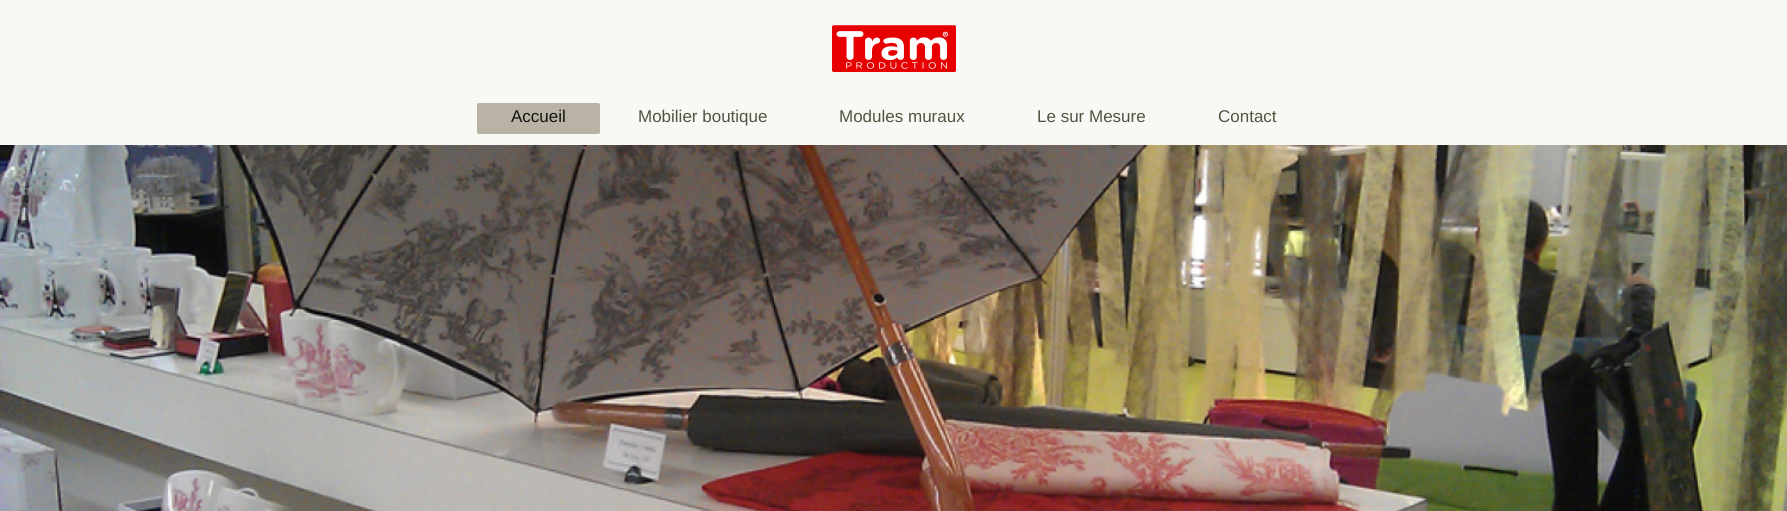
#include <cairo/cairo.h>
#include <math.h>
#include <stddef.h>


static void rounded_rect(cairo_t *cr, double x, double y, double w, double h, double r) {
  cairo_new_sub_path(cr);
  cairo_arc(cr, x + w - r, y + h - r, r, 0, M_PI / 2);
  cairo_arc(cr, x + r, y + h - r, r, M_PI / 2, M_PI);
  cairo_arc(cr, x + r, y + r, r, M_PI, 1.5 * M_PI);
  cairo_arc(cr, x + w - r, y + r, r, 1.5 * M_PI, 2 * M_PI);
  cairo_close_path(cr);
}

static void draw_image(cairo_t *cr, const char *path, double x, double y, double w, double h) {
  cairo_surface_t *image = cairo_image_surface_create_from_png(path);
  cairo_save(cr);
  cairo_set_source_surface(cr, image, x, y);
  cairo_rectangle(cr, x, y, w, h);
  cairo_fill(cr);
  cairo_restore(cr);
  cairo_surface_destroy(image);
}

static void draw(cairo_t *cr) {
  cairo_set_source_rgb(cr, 248 / 255.0, 248 / 255.0, 245 / 255.0);
  cairo_paint(cr);
  draw_image(cr, "images/1.png", 832, 25, 124, 47);
  cairo_set_source_rgb(cr, 185 / 255.0, 179 / 255.0, 165 / 255.0);
  rounded_rect(cr, 477, 103, 123, 31, 2);
  cairo_fill(cr);
  cairo_rectangle(cr, 478, 133, 121, 1);
  cairo_fill(cr);
  draw_image(cr, "images/2.png", 0, 145, 1787, 366);
  cairo_select_font_face(cr, "Liberation Sans", CAIRO_FONT_SLANT_NORMAL, CAIRO_FONT_WEIGHT_NORMAL);
  cairo_set_font_size(cr, 17);
  cairo_set_source_rgb(cr, 19 / 255.0, 18 / 255.0, 17 / 255.0);
  cairo_move_to(cr, 511, 122);
  cairo_show_text(cr, "Accueil");
  cairo_set_source_rgb(cr, 83 / 255.0, 83 / 255.0, 65 / 255.0);
  cairo_move_to(cr, 638, 122);
  cairo_show_text(cr, "Mobilier boutique");
  cairo_move_to(cr, 839, 122);
  cairo_show_text(cr, "Modules muraux");
  cairo_move_to(cr, 1037, 122);
  cairo_show_text(cr, "Le sur Mesure");
  cairo_move_to(cr, 1218, 122);
  cairo_show_text(cr, "Contact");
}

int main(void) {
  cairo_surface_t *surface = cairo_image_surface_create(CAIRO_FORMAT_RGB24, 1787, 511);
  cairo_t *cr = cairo_create(surface);
  cairo_font_options_t *options = cairo_font_options_create();
  cairo_font_options_set_hint_metrics(options, CAIRO_HINT_METRICS_OFF);
  cairo_font_options_set_hint_style(options, CAIRO_HINT_STYLE_NONE);
  cairo_set_font_options(cr, options);
  cairo_set_miter_limit(cr, 4);
  draw(cr);
  cairo_surface_write_to_png(surface, "out.png");
  cairo_font_options_destroy(options);
  cairo_destroy(cr);
  cairo_surface_destroy(surface);
  return 0;
}
